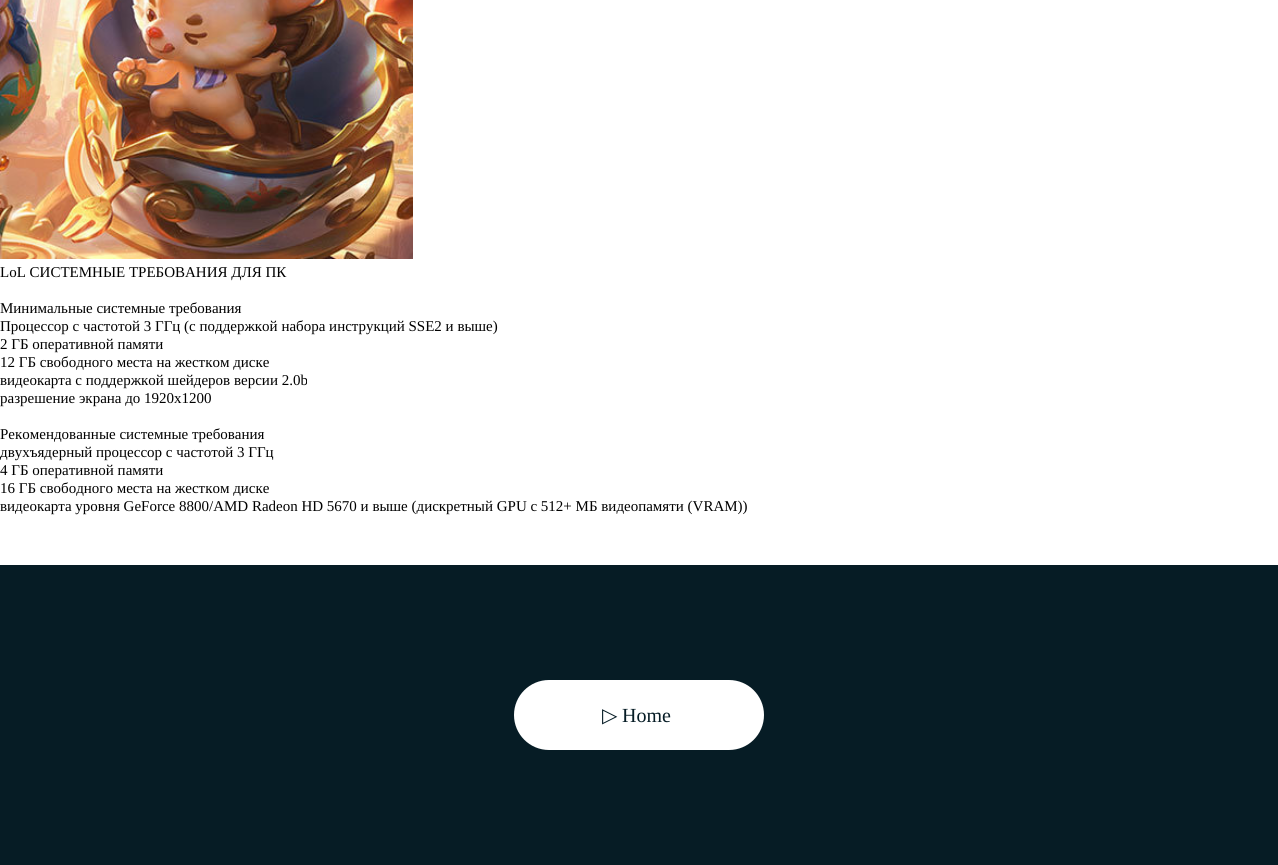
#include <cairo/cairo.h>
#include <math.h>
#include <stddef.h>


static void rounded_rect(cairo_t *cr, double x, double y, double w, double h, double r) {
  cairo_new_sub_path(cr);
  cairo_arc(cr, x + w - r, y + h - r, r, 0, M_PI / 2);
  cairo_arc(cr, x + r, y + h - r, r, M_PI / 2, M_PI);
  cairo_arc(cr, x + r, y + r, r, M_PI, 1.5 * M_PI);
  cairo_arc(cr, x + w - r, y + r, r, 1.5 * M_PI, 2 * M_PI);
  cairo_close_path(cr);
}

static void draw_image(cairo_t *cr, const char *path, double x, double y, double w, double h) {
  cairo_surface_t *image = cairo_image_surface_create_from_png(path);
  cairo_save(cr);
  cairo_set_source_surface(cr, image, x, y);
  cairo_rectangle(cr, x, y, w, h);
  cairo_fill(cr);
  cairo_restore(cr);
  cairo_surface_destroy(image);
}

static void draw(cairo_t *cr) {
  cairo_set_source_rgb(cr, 1, 1, 1);
  cairo_paint(cr);
  draw_image(cr, "images/1.png", 0, 0, 413, 259);
  cairo_set_source_rgb(cr, 6 / 255.0, 28 / 255.0, 37 / 255.0);
  cairo_rectangle(cr, 0, 565, 1278, 300);
  cairo_fill(cr);
  cairo_set_source_rgb(cr, 1, 1, 1);
  rounded_rect(cr, 514, 680, 250, 70, 35);
  cairo_fill(cr);
  cairo_select_font_face(cr, "Liberation Serif", CAIRO_FONT_SLANT_NORMAL, CAIRO_FONT_WEIGHT_NORMAL);
  cairo_set_font_size(cr, 15);
  cairo_set_source_rgb(cr, 0, 0, 0);
  cairo_move_to(cr, 0, 277);
  cairo_show_text(cr, "LoL СИСТЕМНЫЕ ТРЕБОВАНИЯ ДЛЯ ПК");
  cairo_move_to(cr, 0, 313);
  cairo_show_text(cr, "Минимальные системные требования");
  cairo_move_to(cr, 0, 331);
  cairo_show_text(cr, "Процессор с частотой 3 ГГц (с поддержкой набора инструкций SSE2 и выше)");
  cairo_move_to(cr, 0, 349);
  cairo_show_text(cr, "2 ГБ оперативной памяти");
  cairo_move_to(cr, 0, 367);
  cairo_show_text(cr, "12 ГБ свободного места на жестком диске");
  cairo_move_to(cr, 0, 385);
  cairo_show_text(cr, "видеокарта с поддержкой шейдеров версии 2.0b");
  cairo_move_to(cr, 0, 403);
  cairo_show_text(cr, "разрешение экрана до 1920x1200");
  cairo_move_to(cr, 0, 439);
  cairo_show_text(cr, "Рекомендованные системные требования");
  cairo_move_to(cr, 0, 457);
  cairo_show_text(cr, "двухъядерный процессор с частотой 3 ГГц");
  cairo_move_to(cr, 0, 475);
  cairo_show_text(cr, "4 ГБ оперативной памяти");
  cairo_move_to(cr, 0, 493);
  cairo_show_text(cr, "16 ГБ свободного места на жестком диске");
  cairo_move_to(cr, 0, 511);
  cairo_show_text(cr, "видеокарта уровня GeForce 8800/AMD Radeon HD 5670 и выше (дискретный GPU с 512+ МБ видеопамяти (VRAM))");
  cairo_select_font_face(cr, "DejaVu Sans", CAIRO_FONT_SLANT_NORMAL, CAIRO_FONT_WEIGHT_NORMAL);
  cairo_set_font_size(cr, 20);
  cairo_set_source_rgb(cr, 6 / 255.0, 28 / 255.0, 37 / 255.0);
  cairo_move_to(cr, 602, 722);
  cairo_show_text(cr, "▷");
  cairo_select_font_face(cr, "Liberation Serif", CAIRO_FONT_SLANT_NORMAL, CAIRO_FONT_WEIGHT_NORMAL);
  cairo_move_to(cr, 622, 722);
  cairo_show_text(cr, "Home");
}

int main(void) {
  cairo_surface_t *surface = cairo_image_surface_create(CAIRO_FORMAT_RGB24, 1278, 865);
  cairo_t *cr = cairo_create(surface);
  cairo_font_options_t *options = cairo_font_options_create();
  cairo_font_options_set_hint_metrics(options, CAIRO_HINT_METRICS_OFF);
  cairo_font_options_set_hint_style(options, CAIRO_HINT_STYLE_NONE);
  cairo_set_font_options(cr, options);
  cairo_set_miter_limit(cr, 4);
  draw(cr);
  cairo_surface_write_to_png(surface, "out.png");
  cairo_font_options_destroy(options);
  cairo_destroy(cr);
  cairo_surface_destroy(surface);
  return 0;
}
